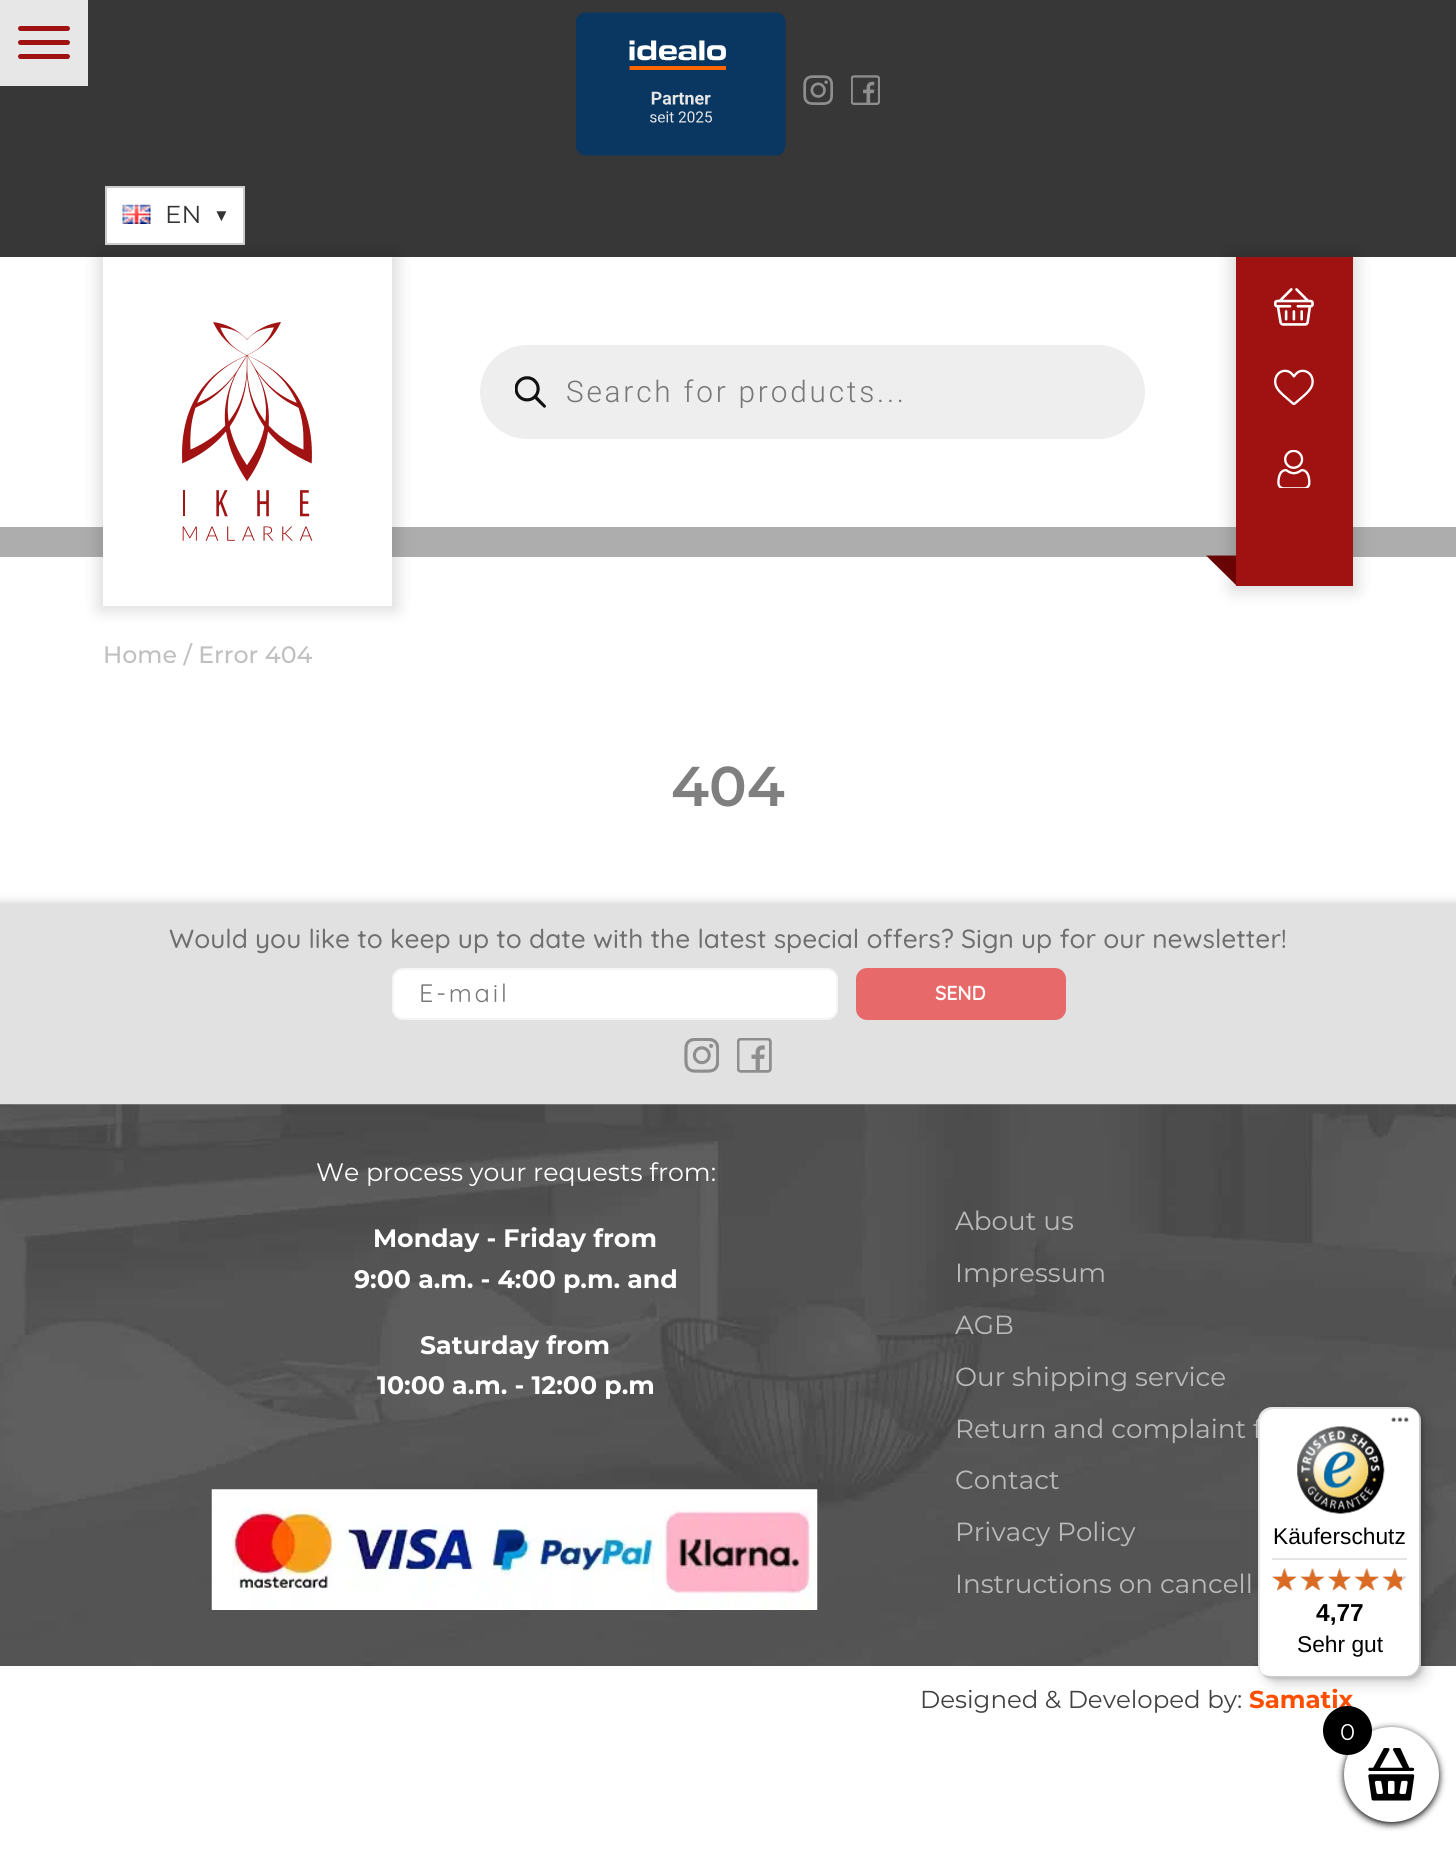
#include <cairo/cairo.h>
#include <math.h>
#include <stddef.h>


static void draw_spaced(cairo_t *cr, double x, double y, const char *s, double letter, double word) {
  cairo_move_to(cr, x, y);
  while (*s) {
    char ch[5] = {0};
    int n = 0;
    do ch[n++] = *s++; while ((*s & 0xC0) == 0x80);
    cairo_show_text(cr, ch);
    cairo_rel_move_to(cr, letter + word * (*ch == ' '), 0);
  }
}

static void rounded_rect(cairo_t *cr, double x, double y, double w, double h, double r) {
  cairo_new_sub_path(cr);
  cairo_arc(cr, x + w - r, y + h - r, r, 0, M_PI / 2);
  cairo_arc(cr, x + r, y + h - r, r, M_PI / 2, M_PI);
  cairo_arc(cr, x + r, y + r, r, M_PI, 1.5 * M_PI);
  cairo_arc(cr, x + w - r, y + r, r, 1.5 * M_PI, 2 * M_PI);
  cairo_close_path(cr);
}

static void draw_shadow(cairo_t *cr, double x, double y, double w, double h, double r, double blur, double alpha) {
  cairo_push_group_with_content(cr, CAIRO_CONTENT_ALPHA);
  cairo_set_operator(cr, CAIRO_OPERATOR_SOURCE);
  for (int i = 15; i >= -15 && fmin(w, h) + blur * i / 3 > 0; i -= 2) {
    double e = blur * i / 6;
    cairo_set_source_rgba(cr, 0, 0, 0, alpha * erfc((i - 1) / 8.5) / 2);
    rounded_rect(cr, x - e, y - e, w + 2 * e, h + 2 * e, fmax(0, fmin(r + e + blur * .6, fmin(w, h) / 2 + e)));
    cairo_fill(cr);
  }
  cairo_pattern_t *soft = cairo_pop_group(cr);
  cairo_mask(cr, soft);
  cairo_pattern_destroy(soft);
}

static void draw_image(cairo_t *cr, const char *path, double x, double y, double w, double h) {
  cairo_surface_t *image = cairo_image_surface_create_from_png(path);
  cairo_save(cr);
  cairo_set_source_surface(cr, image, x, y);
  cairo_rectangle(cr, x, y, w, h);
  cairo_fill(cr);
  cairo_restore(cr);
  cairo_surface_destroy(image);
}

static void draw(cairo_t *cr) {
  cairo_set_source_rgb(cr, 1, 1, 1);
  cairo_paint(cr);
  cairo_set_source_rgb(cr, 55 / 255.0, 55 / 255.0, 55 / 255.0);
  cairo_rectangle(cr, 0, 0, 1456, 257);
  cairo_fill(cr);
  cairo_set_source_rgb(cr, 231 / 255.0, 231 / 255.0, 231 / 255.0);
  cairo_rectangle(cr, 0, 0, 88, 86);
  cairo_fill(cr);
  cairo_set_source_rgb(cr, 160 / 255.0, 18 / 255.0, 18 / 255.0);
  rounded_rect(cr, 18, 26, 52, 5, 2.5);
  cairo_fill(cr);
  rounded_rect(cr, 18, 40, 52, 5, 2.5);
  cairo_fill(cr);
  rounded_rect(cr, 18, 54, 52, 5, 2.5);
  cairo_fill(cr);
  draw_image(cr, "images/1.png", 576, 12, 210, 144);
  draw_image(cr, "images/2.png", 803, 75, 30, 30);
  draw_image(cr, "images/3.png", 851, 75, 29, 30);
  cairo_set_source_rgb(cr, 173 / 255.0, 173 / 255.0, 173 / 255.0);
  cairo_rectangle(cr, 0, 527, 1456, 30);
  cairo_fill(cr);
  cairo_set_source_rgb(cr, 0, 0, 0);
  draw_shadow(cr, 100, 254, 296, 355, 0, 9, 0.16);
  cairo_set_source_rgb(cr, 1, 1, 1);
  cairo_rectangle(cr, 106, 187, 138, 57);
  cairo_fill_preserve(cr);
  cairo_set_source_rgb(cr, 204 / 255.0, 204 / 255.0, 204 / 255.0);
  cairo_stroke(cr);
  draw_image(cr, "images/4.png", 122, 204, 29, 20);
  cairo_set_source_rgb(cr, 1, 1, 1);
  cairo_rectangle(cr, 103, 257, 289, 349);
  cairo_fill(cr);
  draw_image(cr, "images/5.png", 182, 322, 131, 219);
  cairo_set_source_rgb(cr, 238 / 255.0, 238 / 255.0, 238 / 255.0);
  rounded_rect(cr, 480, 345, 665, 94, 47);
  cairo_fill(cr);
  draw_image(cr, "images/6.png", 515, 376, 31, 32);
  cairo_set_source_rgb(cr, 0, 0, 0);
  draw_shadow(cr, 1232, 254, 124, 336, 0, 9, 0.16);
  cairo_set_source_rgb(cr, 160 / 255.0, 18 / 255.0, 18 / 255.0);
  cairo_rectangle(cr, 1236, 257, 117, 329);
  cairo_fill(cr);
  draw_image(cr, "images/7.png", 1274, 288, 40, 38);
  draw_image(cr, "images/8.png", 1274, 369, 40, 37);
  draw_image(cr, "images/9.png", 1277, 450, 34, 38);
  cairo_set_source_rgb(cr, 105 / 255.0, 4 / 255.0, 4 / 255.0);
  cairo_new_path(cr);
  cairo_move_to(cr, 1236, 585);
  cairo_line_to(cr, 1206, 555.5);
  cairo_line_to(cr, 1236, 555.5);
  cairo_close_path(cr);
  cairo_fill(cr);
  cairo_set_source_rgb(cr, 0, 0, 0);
  draw_shadow(cr, -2, 903, 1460, 203, 0, 5, 0.2);
  cairo_set_source_rgb(cr, 225 / 255.0, 225 / 255.0, 225 / 255.0);
  cairo_rectangle(cr, 0, 905, 1456, 199);
  cairo_fill(cr);
  cairo_set_source_rgb(cr, 1, 1, 1);
  rounded_rect(cr, 393, 969, 444, 50, 10);
  cairo_fill_preserve(cr);
  cairo_set_source_rgb(cr, 245 / 255.0, 245 / 255.0, 245 / 255.0);
  cairo_stroke(cr);
  cairo_set_source_rgb(cr, 232 / 255.0, 105 / 255.0, 105 / 255.0);
  rounded_rect(cr, 856, 968, 210, 52, 11);
  cairo_fill(cr);
  draw_image(cr, "images/10.png", 684, 1038, 35, 35);
  draw_image(cr, "images/11.png", 737, 1038, 35, 35);
  draw_image(cr, "images/12.png", 0, 1104, 1456, 562);
  draw_image(cr, "images/13.png", 211, 1489, 607, 121);
  cairo_set_source_rgb(cr, 0, 0, 0);
  draw_shadow(cr, 1344, 1729, 95, 95, 47.5, 3.5, 1);
  cairo_set_source_rgb(cr, 1, 1, 1);
  cairo_arc(cr, 1391.5, 1774.5, 47.5, 0, 2 * M_PI);
  cairo_fill(cr);
  cairo_set_source_rgb(cr, 0, 0, 0);
  draw_shadow(cr, 1264, 1412, 162, 272, 14, 7, 0.15);
  draw_shadow(cr, 1260, 1409, 163, 271, 14, 2, 0.15);
  cairo_select_font_face(cr, "Montserrat", CAIRO_FONT_SLANT_NORMAL, CAIRO_FONT_WEIGHT_NORMAL);
  cairo_set_font_size(cr, 24.5);
  cairo_set_source_rgb(cr, 51 / 255.0, 51 / 255.0, 51 / 255.0);
  cairo_move_to(cr, 165, 223);
  cairo_show_text(cr, "EN");
  cairo_select_font_face(cr, "Liberation Serif", CAIRO_FONT_SLANT_NORMAL, CAIRO_FONT_WEIGHT_NORMAL);
  cairo_set_font_size(cr, 17);
  cairo_move_to(cr, 213, 221);
  cairo_show_text(cr, "▼");
  cairo_select_font_face(cr, "Roboto Light", CAIRO_FONT_SLANT_NORMAL, CAIRO_FONT_WEIGHT_NORMAL);
  cairo_set_font_size(cr, 29.75);
  cairo_set_source_rgb(cr, 119 / 255.0, 119 / 255.0, 119 / 255.0);
  draw_spaced(cr, 566, 402, "Search for products...", 2.8, 0);
  cairo_select_font_face(cr, "Montserrat Medium", CAIRO_FONT_SLANT_NORMAL, CAIRO_FONT_WEIGHT_NORMAL);
  cairo_set_font_size(cr, 23.75);
  cairo_set_source_rgb(cr, 192 / 255.0, 192 / 255.0, 192 / 255.0);
  cairo_move_to(cr, 103, 663);
  cairo_show_text(cr, "Home / Error 404");
  cairo_select_font_face(cr, "Montserrat SemiBold", CAIRO_FONT_SLANT_NORMAL, CAIRO_FONT_WEIGHT_NORMAL);
  cairo_set_font_size(cr, 56);
  cairo_set_source_rgb(cr, 127 / 255.0, 127 / 255.0, 127 / 255.0);
  cairo_move_to(cr, 671, 806);
  cairo_show_text(cr, "404");
  cairo_select_font_face(cr, "Quicksand Light", CAIRO_FONT_SLANT_NORMAL, CAIRO_FONT_WEIGHT_NORMAL);
  cairo_set_font_size(cr, 26.25);
  cairo_set_source_rgb(cr, 111 / 255.0, 111 / 255.0, 111 / 255.0);
  cairo_move_to(cr, 169, 948);
  cairo_show_text(cr, "Would you like to keep up to date with the latest special offers? Sign up for our newsletter!");
  cairo_select_font_face(cr, "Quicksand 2 Light", CAIRO_FONT_SLANT_NORMAL, CAIRO_FONT_WEIGHT_NORMAL);
  cairo_set_font_size(cr, 25.25);
  cairo_set_source_rgb(cr, 119 / 255.0, 119 / 255.0, 119 / 255.0);
  draw_spaced(cr, 419, 1002, "E-mail", 2.8, 0);
  cairo_select_font_face(cr, "Quicksand", CAIRO_FONT_SLANT_NORMAL, CAIRO_FONT_WEIGHT_BOLD);
  cairo_set_font_size(cr, 19.5);
  cairo_set_source_rgb(cr, 1, 1, 1);
  cairo_move_to(cr, 935, 1000);
  cairo_show_text(cr, "SEND");
  cairo_select_font_face(cr, "Montserrat", CAIRO_FONT_SLANT_NORMAL, CAIRO_FONT_WEIGHT_NORMAL);
  cairo_set_font_size(cr, 25.25);
  cairo_move_to(cr, 316, 1181);
  cairo_show_text(cr, "We process your requests from:");
  cairo_select_font_face(cr, "Montserrat", CAIRO_FONT_SLANT_NORMAL, CAIRO_FONT_WEIGHT_BOLD);
  cairo_move_to(cr, 373, 1247);
  cairo_show_text(cr, "Monday - Friday from");
  cairo_move_to(cr, 354, 1288);
  cairo_show_text(cr, "9:00 a.m. - 4:00 p.m. and");
  cairo_move_to(cr, 420, 1354);
  cairo_show_text(cr, "Saturday from");
  cairo_move_to(cr, 377, 1394);
  cairo_show_text(cr, "10:00 a.m. - 12:00 p.m");
  cairo_select_font_face(cr, "Montserrat", CAIRO_FONT_SLANT_NORMAL, CAIRO_FONT_WEIGHT_NORMAL);
  cairo_set_font_size(cr, 26.25);
  cairo_set_source_rgb(cr, 186 / 255.0, 186 / 255.0, 186 / 255.0);
  cairo_move_to(cr, 955, 1230);
  cairo_show_text(cr, "About us");
  cairo_move_to(cr, 955, 1282);
  cairo_show_text(cr, "Impressum");
  cairo_move_to(cr, 955, 1334);
  cairo_show_text(cr, "AGB");
  cairo_move_to(cr, 955, 1386);
  cairo_show_text(cr, "Our shipping service");
  cairo_move_to(cr, 955, 1438);
  cairo_show_text(cr, "Return and complaint f");
  cairo_move_to(cr, 955, 1489);
  cairo_show_text(cr, "Contact");
  cairo_move_to(cr, 955, 1541);
  cairo_show_text(cr, "Privacy Policy");
  cairo_move_to(cr, 955, 1593);
  cairo_show_text(cr, "Instructions on cancell");
  cairo_set_font_size(cr, 24.5);
  cairo_set_source_rgb(cr, 65 / 255.0, 65 / 255.0, 65 / 255.0);
  cairo_move_to(cr, 920, 1708);
  cairo_show_text(cr, "Designed & Developed by:");
  cairo_select_font_face(cr, "Montserrat", CAIRO_FONT_SLANT_NORMAL, CAIRO_FONT_WEIGHT_BOLD);
  cairo_set_source_rgb(cr, 1, 78 / 255.0, 0);
  cairo_move_to(cr, 1249, 1708);
  cairo_show_text(cr, "Samatix");
  cairo_set_source_rgb(cr, 0, 0, 0);
  cairo_new_path(cr);
  cairo_arc(cr, 1347.5, 1730.5, 24.5, 0, 2 * M_PI);
  cairo_fill(cr);
  cairo_select_font_face(cr, "Montserrat", CAIRO_FONT_SLANT_NORMAL, CAIRO_FONT_WEIGHT_NORMAL);
  cairo_set_font_size(cr, 22.75);
  cairo_set_source_rgb(cr, 1, 1, 1);
  cairo_move_to(cr, 1340, 1740);
  cairo_show_text(cr, "0");
  draw_image(cr, "images/14.png", 1368, 1748, 47, 53);
  rounded_rect(cr, 1258, 1407, 163, 271, 14);
  cairo_fill(cr);
  cairo_set_source_rgba(cr, 0, 0, 0, 0.1);
  cairo_new_path(cr);
  cairo_move_to(cr, 1274, 1409);
  cairo_line_to(cr, 1409, 1409);
  cairo_curve_to(cr, 1412, 1409, 1416, 1410, 1418, 1413);
  cairo_curve_to(cr, 1416, 1409, 1412, 1407, 1407, 1407);
  cairo_line_to(cr, 1272, 1407);
  cairo_curve_to(cr, 1264, 1407, 1258, 1413, 1258, 1421);
  cairo_line_to(cr, 1258, 1664);
  cairo_curve_to(cr, 1258, 1668, 1260, 1672, 1263, 1674);
  cairo_curve_to(cr, 1261, 1672, 1260, 1669, 1260, 1666);
  cairo_line_to(cr, 1260, 1423);
  cairo_curve_to(cr, 1260, 1415, 1266, 1409, 1274, 1409);
  cairo_close_path(cr);
  cairo_fill(cr);
  cairo_set_source_rgba(cr, 0, 0, 0, 0.2);
  cairo_new_path(cr);
  cairo_move_to(cr, 1261, 1672);
  cairo_curve_to(cr, 1263, 1676, 1267, 1678, 1272, 1678);
  cairo_line_to(cr, 1407, 1678);
  cairo_curve_to(cr, 1415, 1678, 1421, 1672, 1421, 1664);
  cairo_line_to(cr, 1421, 1421);
  cairo_curve_to(cr, 1421, 1416, 1419, 1412, 1415, 1410);
  cairo_curve_to(cr, 1418, 1412, 1419, 1416, 1419, 1419);
  cairo_line_to(cr, 1419, 1662);
  cairo_curve_to(cr, 1419, 1670, 1413, 1676, 1405, 1676);
  cairo_line_to(cr, 1270, 1676);
  cairo_curve_to(cr, 1267, 1676, 1263, 1675, 1261, 1672);
  cairo_close_path(cr);
  cairo_fill(cr);
  cairo_set_source_rgba(cr, 50 / 255.0, 50 / 255.0, 50 / 255.0, 0.2);
  cairo_new_path(cr);
  cairo_move_to(cr, 1263, 1674);
  cairo_curve_to(cr, 1265, 1677, 1268, 1678, 1272, 1678);
  cairo_line_to(cr, 1407, 1678);
  cairo_curve_to(cr, 1415, 1678, 1421, 1672, 1421, 1664);
  cairo_line_to(cr, 1421, 1421);
  cairo_curve_to(cr, 1421, 1417, 1420, 1414, 1417, 1412);
  cairo_curve_to(cr, 1419, 1414, 1420, 1417, 1420, 1420);
  cairo_line_to(cr, 1420, 1663);
  cairo_curve_to(cr, 1420, 1671, 1414, 1677, 1406, 1677);
  cairo_line_to(cr, 1271, 1677);
  cairo_curve_to(cr, 1268, 1677, 1265, 1676, 1263, 1674);
  cairo_close_path(cr);
  cairo_fill(cr);
  cairo_set_source_rgba(cr, 1, 1, 1, 0.3);
  cairo_new_path(cr);
  cairo_move_to(cr, 1261, 1673);
  cairo_curve_to(cr, 1263, 1676, 1267, 1678, 1272, 1678);
  cairo_line_to(cr, 1407, 1678);
  cairo_curve_to(cr, 1415, 1678, 1421, 1672, 1421, 1664);
  cairo_line_to(cr, 1421, 1421);
  cairo_curve_to(cr, 1421, 1417, 1420, 1414, 1417, 1412);
  cairo_curve_to(cr, 1419, 1414, 1420, 1417, 1420, 1420);
  cairo_line_to(cr, 1420, 1663);
  cairo_curve_to(cr, 1420, 1671, 1414, 1677, 1406, 1677);
  cairo_line_to(cr, 1271, 1677);
  cairo_curve_to(cr, 1267, 1677, 1264, 1675, 1261, 1673);
  cairo_close_path(cr);
  cairo_fill(cr);
  draw_image(cr, "images/15.png", 1391, 1417, 18, 5);
  draw_image(cr, "images/16.png", 1297, 1426, 88, 88);
  cairo_select_font_face(cr, "Liberation Sans", CAIRO_FONT_SLANT_NORMAL, CAIRO_FONT_WEIGHT_NORMAL);
  cairo_set_source_rgb(cr, 0, 0, 0);
  cairo_move_to(cr, 1273, 1544);
  cairo_show_text(cr, "Käuferschutz");
  cairo_set_source_rgb(cr, 229 / 255.0, 229 / 255.0, 229 / 255.0);
  cairo_rectangle(cr, 1272, 1558, 135, 2);
  cairo_fill(cr);
  draw_image(cr, "images/17.png", 1272, 1568, 25, 23);
  draw_image(cr, "images/18.png", 1300, 1568, 25, 23);
  draw_image(cr, "images/19.png", 1328, 1568, 23, 23);
  draw_image(cr, "images/20.png", 1354, 1568, 25, 22);
  draw_image(cr, "images/21.png", 1383, 1568, 24, 23);
  draw_image(cr, "images/22.png", 1272, 1568, 25, 23);
  draw_image(cr, "images/23.png", 1300, 1568, 25, 23);
  draw_image(cr, "images/24.png", 1328, 1568, 23, 23);
  draw_image(cr, "images/25.png", 1354, 1568, 25, 23);
  draw_image(cr, "images/26.png", 1382, 1568, 20, 23);
  cairo_select_font_face(cr, "Liberation Sans", CAIRO_FONT_SLANT_NORMAL, CAIRO_FONT_WEIGHT_BOLD);
  cairo_set_font_size(cr, 24.5);
  cairo_set_source_rgb(cr, 0, 0, 0);
  cairo_move_to(cr, 1316, 1621);
  cairo_show_text(cr, "4,77");
  cairo_select_font_face(cr, "Liberation Sans", CAIRO_FONT_SLANT_NORMAL, CAIRO_FONT_WEIGHT_NORMAL);
  cairo_set_font_size(cr, 22.75);
  cairo_move_to(cr, 1297, 1652);
  cairo_show_text(cr, "Sehr gut");
}

int main(void) {
  cairo_surface_t *surface = cairo_image_surface_create(CAIRO_FORMAT_RGB24, 1456, 1860);
  cairo_t *cr = cairo_create(surface);
  cairo_font_options_t *options = cairo_font_options_create();
  cairo_font_options_set_hint_metrics(options, CAIRO_HINT_METRICS_OFF);
  cairo_font_options_set_hint_style(options, CAIRO_HINT_STYLE_NONE);
  cairo_set_font_options(cr, options);
  cairo_set_miter_limit(cr, 4);
  draw(cr);
  cairo_surface_write_to_png(surface, "out.png");
  cairo_font_options_destroy(options);
  cairo_destroy(cr);
  cairo_surface_destroy(surface);
  return 0;
}
